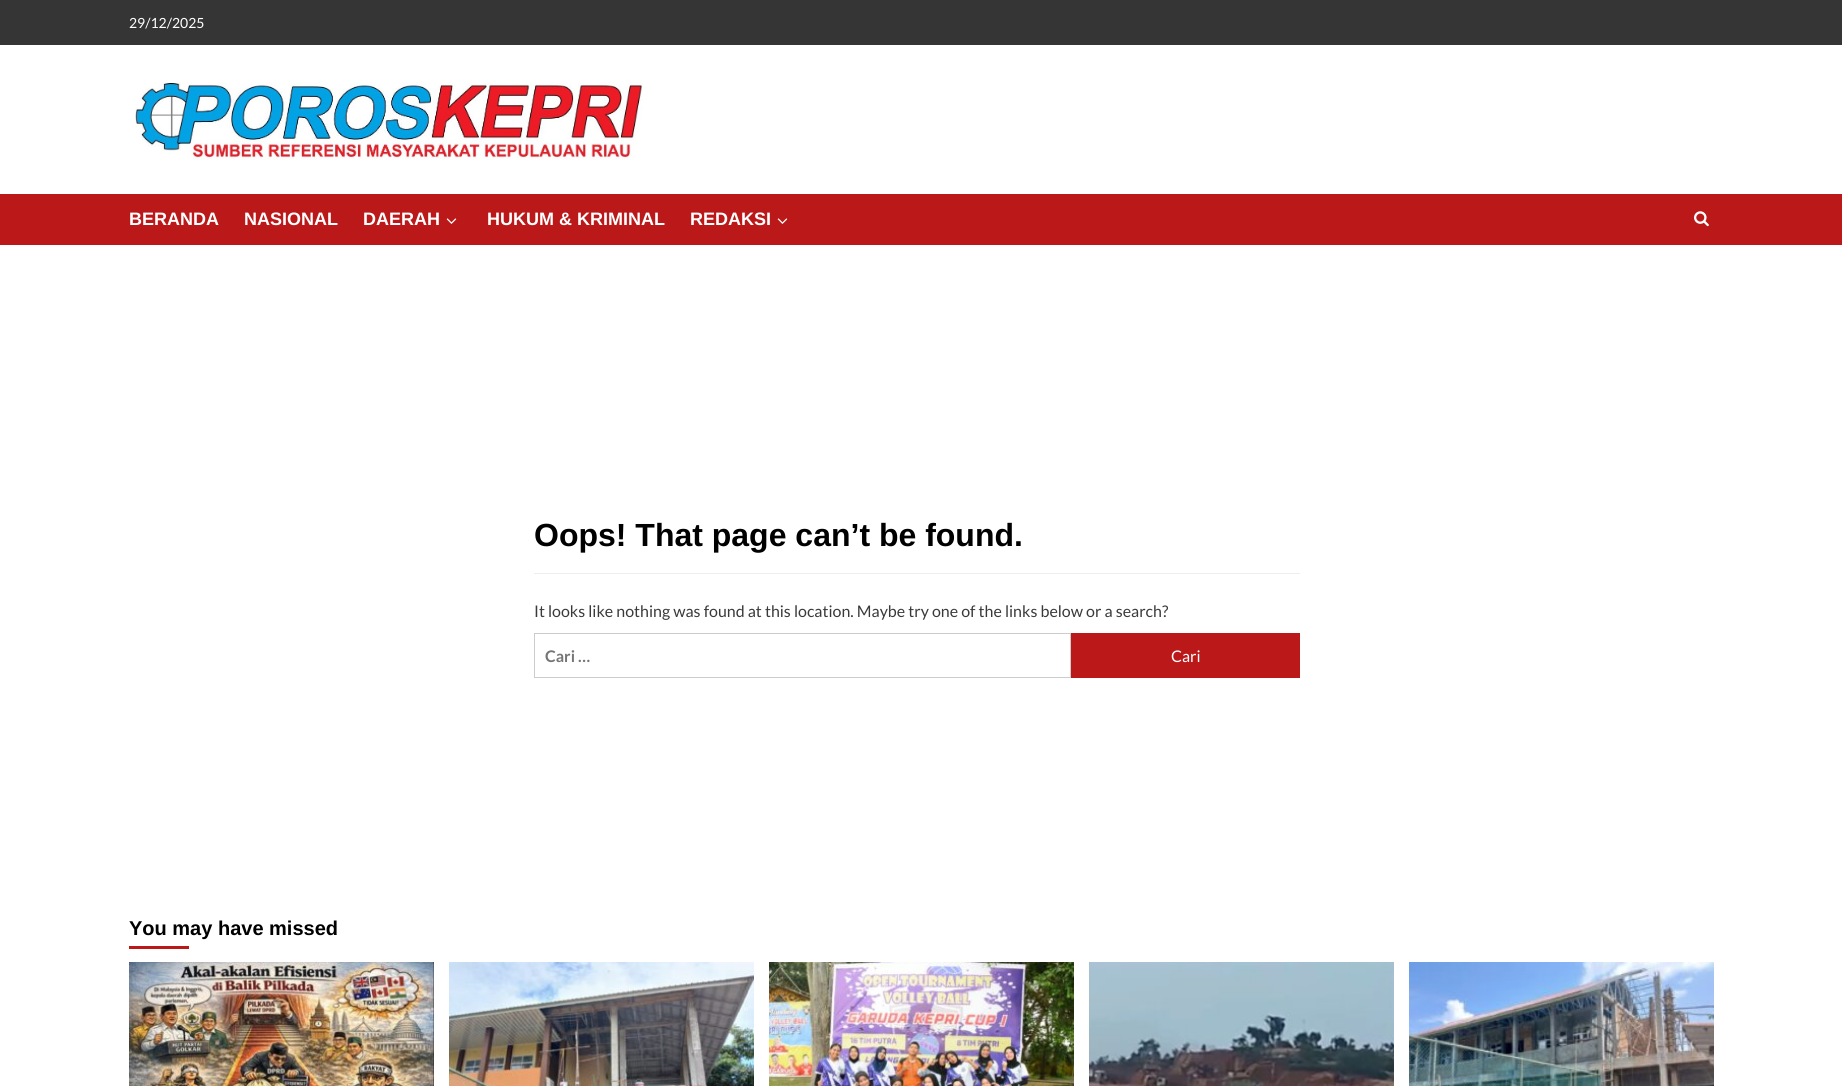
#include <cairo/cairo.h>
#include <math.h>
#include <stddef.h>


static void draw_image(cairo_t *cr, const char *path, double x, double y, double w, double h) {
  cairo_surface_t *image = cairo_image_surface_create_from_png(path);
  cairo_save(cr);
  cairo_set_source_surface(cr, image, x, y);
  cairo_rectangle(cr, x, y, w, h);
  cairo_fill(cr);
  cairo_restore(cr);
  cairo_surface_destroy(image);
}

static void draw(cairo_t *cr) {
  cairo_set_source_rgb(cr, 1, 1, 1);
  cairo_paint(cr);
  cairo_set_source_rgb(cr, 53 / 255.0, 53 / 255.0, 53 / 255.0);
  cairo_rectangle(cr, 0, 0, 1842, 45);
  cairo_fill(cr);
  draw_image(cr, "images/1.png", 135, 82, 508, 78);
  cairo_set_source_rgb(cr, 187 / 255.0, 25 / 255.0, 25 / 255.0);
  cairo_rectangle(cr, 0, 194, 1842, 51);
  cairo_fill(cr);
  draw_image(cr, "images/2.png", 446, 218, 11, 6);
  draw_image(cr, "images/2.png", 777, 218, 11, 6);
  draw_image(cr, "images/3.png", 1694, 211, 15, 16);
  cairo_set_source_rgb(cr, 238 / 255.0, 238 / 255.0, 238 / 255.0);
  cairo_rectangle(cr, 534, 573, 766, 1);
  cairo_fill(cr);
  cairo_rectangle(cr, 534.5, 633.5, 536, 44);
  cairo_set_source_rgb(cr, 204 / 255.0, 204 / 255.0, 204 / 255.0);
  cairo_set_line_width(cr, 1);
  cairo_stroke(cr);
  cairo_set_source_rgb(cr, 187 / 255.0, 25 / 255.0, 25 / 255.0);
  cairo_rectangle(cr, 1071, 633, 229, 45);
  cairo_fill(cr);
  cairo_rectangle(cr, 129, 946, 60, 3);
  cairo_fill(cr);
  draw_image(cr, "images/4.png", 129, 962, 305, 124);
  draw_image(cr, "images/5.png", 449, 962, 305, 124);
  draw_image(cr, "images/6.png", 769, 962, 305, 124);
  draw_image(cr, "images/7.png", 1089, 962, 305, 124);
  draw_image(cr, "images/8.png", 1409, 962, 305, 124);
  cairo_select_font_face(cr, "Lato", CAIRO_FONT_SLANT_NORMAL, CAIRO_FONT_WEIGHT_NORMAL);
  cairo_set_font_size(cr, 14);
  cairo_set_source_rgb(cr, 1, 1, 1);
  cairo_move_to(cr, 129, 28);
  cairo_show_text(cr, "29/12/2025");
  cairo_select_font_face(cr, "Liberation Sans", CAIRO_FONT_SLANT_NORMAL, CAIRO_FONT_WEIGHT_BOLD);
  cairo_set_font_size(cr, 18);
  cairo_move_to(cr, 129, 225);
  cairo_show_text(cr, "BERANDA");
  cairo_move_to(cr, 244, 225);
  cairo_show_text(cr, "NASIONAL");
  cairo_move_to(cr, 363, 225);
  cairo_show_text(cr, "DAERAH");
  cairo_move_to(cr, 487, 225);
  cairo_show_text(cr, "HUKUM & KRIMINAL");
  cairo_move_to(cr, 690, 225);
  cairo_show_text(cr, "REDAKSI");
  cairo_set_font_size(cr, 32);
  cairo_set_source_rgb(cr, 0, 0, 0);
  cairo_move_to(cr, 534, 546);
  cairo_show_text(cr, "Oops! That page can’t be found.");
  cairo_select_font_face(cr, "Lato", CAIRO_FONT_SLANT_NORMAL, CAIRO_FONT_WEIGHT_NORMAL);
  cairo_set_font_size(cr, 16);
  cairo_set_source_rgb(cr, 58 / 255.0, 58 / 255.0, 58 / 255.0);
  cairo_move_to(cr, 534, 617);
  cairo_show_text(cr, "It looks like nothing was found at this location. Maybe try one of the links below or a search?");
  cairo_select_font_face(cr, "Lato", CAIRO_FONT_SLANT_NORMAL, CAIRO_FONT_WEIGHT_BOLD);
  cairo_set_source_rgb(cr, 117 / 255.0, 117 / 255.0, 117 / 255.0);
  cairo_move_to(cr, 545, 662);
  cairo_show_text(cr, "Cari …");
  cairo_select_font_face(cr, "Lato", CAIRO_FONT_SLANT_NORMAL, CAIRO_FONT_WEIGHT_NORMAL);
  cairo_set_source_rgb(cr, 1, 1, 1);
  cairo_move_to(cr, 1171, 662);
  cairo_show_text(cr, "Cari");
  cairo_select_font_face(cr, "Liberation Sans", CAIRO_FONT_SLANT_NORMAL, CAIRO_FONT_WEIGHT_BOLD);
  cairo_set_font_size(cr, 20);
  cairo_set_source_rgb(cr, 0, 0, 0);
  cairo_move_to(cr, 129, 935);
  cairo_show_text(cr, "You may have missed");
}

int main(void) {
  cairo_surface_t *surface = cairo_image_surface_create(CAIRO_FORMAT_RGB24, 1842, 1086);
  cairo_t *cr = cairo_create(surface);
  cairo_font_options_t *options = cairo_font_options_create();
  cairo_font_options_set_hint_metrics(options, CAIRO_HINT_METRICS_OFF);
  cairo_font_options_set_hint_style(options, CAIRO_HINT_STYLE_NONE);
  cairo_set_font_options(cr, options);
  cairo_set_miter_limit(cr, 4);
  draw(cr);
  cairo_surface_write_to_png(surface, "out.png");
  cairo_font_options_destroy(options);
  cairo_destroy(cr);
  cairo_surface_destroy(surface);
  return 0;
}
